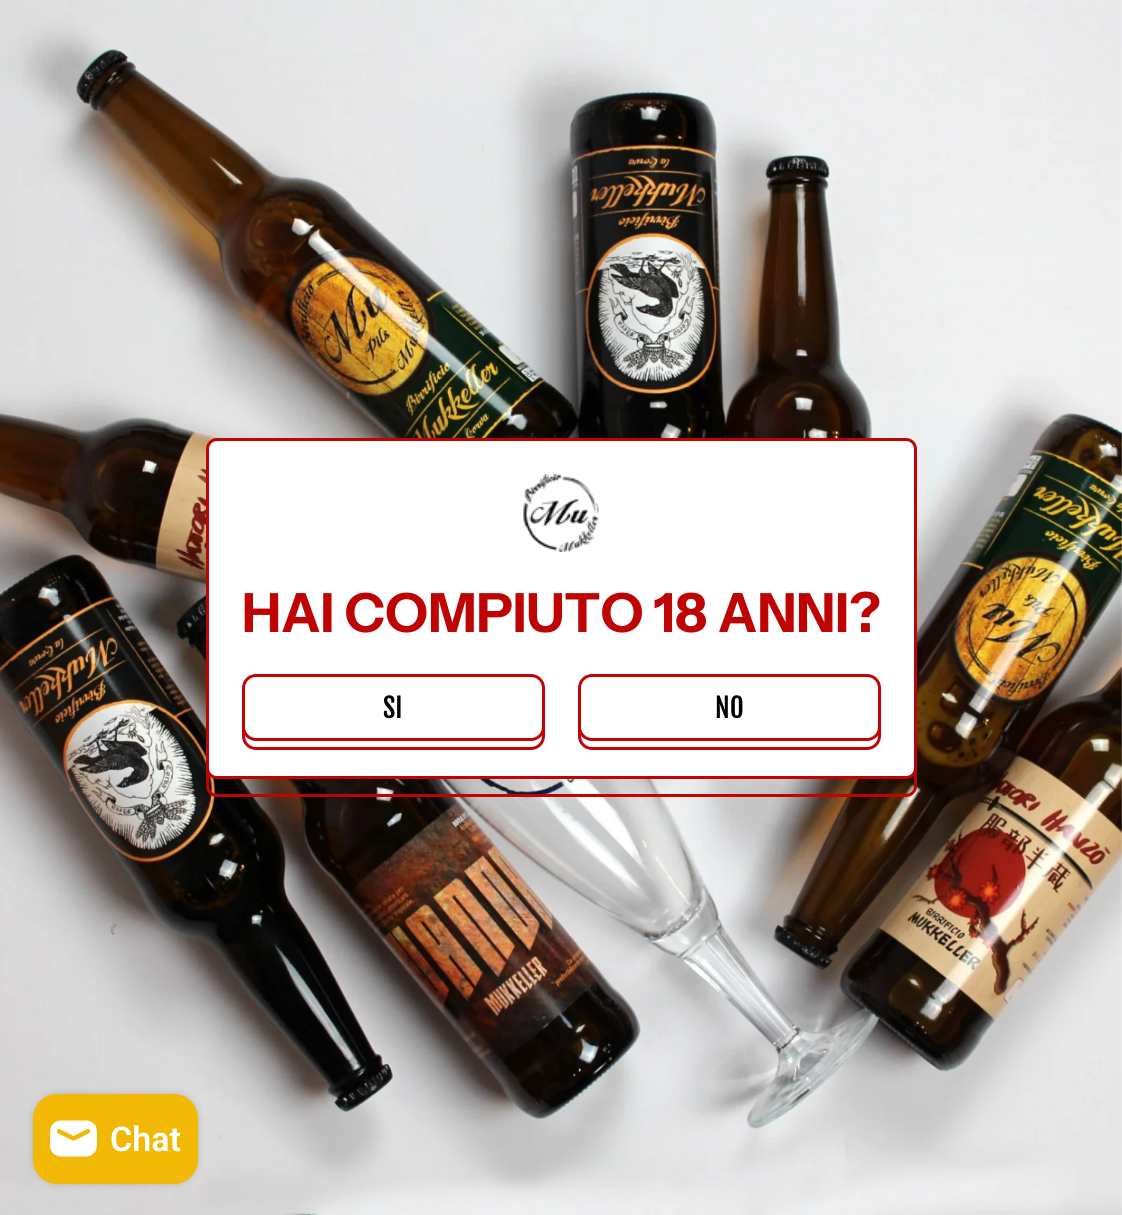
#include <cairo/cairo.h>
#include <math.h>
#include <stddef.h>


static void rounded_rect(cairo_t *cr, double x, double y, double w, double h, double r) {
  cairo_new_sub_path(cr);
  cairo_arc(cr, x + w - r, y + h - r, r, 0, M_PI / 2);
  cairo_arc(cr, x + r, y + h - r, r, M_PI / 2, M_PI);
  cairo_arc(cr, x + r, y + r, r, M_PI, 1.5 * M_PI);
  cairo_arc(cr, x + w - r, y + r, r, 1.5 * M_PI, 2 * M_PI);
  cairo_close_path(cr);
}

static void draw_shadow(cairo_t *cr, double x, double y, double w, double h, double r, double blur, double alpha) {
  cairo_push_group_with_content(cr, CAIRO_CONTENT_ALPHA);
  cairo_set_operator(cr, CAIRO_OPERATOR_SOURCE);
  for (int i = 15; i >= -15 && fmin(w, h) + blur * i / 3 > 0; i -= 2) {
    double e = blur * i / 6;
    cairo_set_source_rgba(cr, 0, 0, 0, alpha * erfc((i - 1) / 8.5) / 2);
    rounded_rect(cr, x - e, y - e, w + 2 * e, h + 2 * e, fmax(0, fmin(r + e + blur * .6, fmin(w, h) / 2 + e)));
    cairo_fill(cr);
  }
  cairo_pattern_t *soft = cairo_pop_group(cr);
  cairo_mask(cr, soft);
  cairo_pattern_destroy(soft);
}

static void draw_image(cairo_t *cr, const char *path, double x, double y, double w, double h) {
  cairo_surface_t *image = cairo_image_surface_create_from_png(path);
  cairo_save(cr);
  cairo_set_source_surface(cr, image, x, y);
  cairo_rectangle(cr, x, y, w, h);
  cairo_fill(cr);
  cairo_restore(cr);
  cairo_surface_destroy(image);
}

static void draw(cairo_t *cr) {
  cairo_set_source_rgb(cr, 1, 1, 1);
  cairo_paint(cr);
  draw_image(cr, "images/1.png", 0, 0, 1122, 1215);
  rounded_rect(cr, 207.5, 457.5, 708, 338, 9.5);
  cairo_set_source_rgb(cr, 191 / 255.0, 4 / 255.0, 4 / 255.0);
  cairo_set_line_width(cr, 3);
  cairo_stroke(cr);
  cairo_set_source_rgb(cr, 1, 1, 1);
  rounded_rect(cr, 207.5, 439.5, 708, 338, 9.5);
  cairo_fill_preserve(cr);
  cairo_set_source_rgb(cr, 191 / 255.0, 4 / 255.0, 4 / 255.0);
  cairo_stroke(cr);
  draw_image(cr, "images/2.png", 523, 474, 76, 78);
  rounded_rect(cr, 243.5, 684.5, 300, 64, 12.5);
  cairo_stroke(cr);
  cairo_set_source_rgb(cr, 1, 1, 1);
  rounded_rect(cr, 243.5, 675.5, 300, 64, 12.5);
  cairo_fill_preserve(cr);
  cairo_set_source_rgb(cr, 191 / 255.0, 4 / 255.0, 4 / 255.0);
  cairo_stroke(cr);
  rounded_rect(cr, 579.5, 684.5, 300, 64, 12.5);
  cairo_stroke(cr);
  cairo_set_source_rgb(cr, 1, 1, 1);
  rounded_rect(cr, 579.5, 675.5, 300, 64, 12.5);
  cairo_fill_preserve(cr);
  cairo_set_source_rgb(cr, 191 / 255.0, 4 / 255.0, 4 / 255.0);
  cairo_stroke(cr);
  cairo_set_source_rgb(cr, 0, 0, 0);
  draw_shadow(cr, 33, 1094, 165, 90, 24, 4, 0.15);
  cairo_set_source_rgb(cr, 241 / 255.0, 184 / 255.0, 5 / 255.0);
  rounded_rect(cr, 33, 1094, 165, 90, 24);
  cairo_fill(cr);
  draw_image(cr, "images/3.png", 50, 1120, 47, 37);
  cairo_select_font_face(cr, "Instrument Sans", CAIRO_FONT_SLANT_NORMAL, CAIRO_FONT_WEIGHT_BOLD);
  cairo_set_font_size(cr, 54);
  cairo_set_source_rgb(cr, 191 / 255.0, 4 / 255.0, 4 / 255.0);
  cairo_move_to(cr, 242, 632);
  cairo_show_text(cr, "HAI COMPIUTO 18 ANNI?");
  cairo_select_font_face(cr, "Fjalla One", CAIRO_FONT_SLANT_NORMAL, CAIRO_FONT_WEIGHT_NORMAL);
  cairo_set_font_size(cr, 27);
  cairo_set_source_rgb(cr, 0, 0, 0);
  cairo_move_to(cr, 383, 718);
  cairo_show_text(cr, "SI");
  cairo_move_to(cr, 715, 718);
  cairo_show_text(cr, "NO");
  cairo_select_font_face(cr, "Roboto SemiBold", CAIRO_FONT_SLANT_NORMAL, CAIRO_FONT_WEIGHT_NORMAL);
  cairo_set_font_size(cr, 34);
  cairo_set_source_rgb(cr, 1, 1, 1);
  cairo_move_to(cr, 110, 1151);
  cairo_show_text(cr, "Chat");
}

int main(void) {
  cairo_surface_t *surface = cairo_image_surface_create(CAIRO_FORMAT_RGB24, 1122, 1215);
  cairo_t *cr = cairo_create(surface);
  cairo_font_options_t *options = cairo_font_options_create();
  cairo_font_options_set_hint_metrics(options, CAIRO_HINT_METRICS_OFF);
  cairo_font_options_set_hint_style(options, CAIRO_HINT_STYLE_NONE);
  cairo_set_font_options(cr, options);
  cairo_set_miter_limit(cr, 4);
  draw(cr);
  cairo_surface_write_to_png(surface, "out.png");
  cairo_font_options_destroy(options);
  cairo_destroy(cr);
  cairo_surface_destroy(surface);
  return 0;
}
